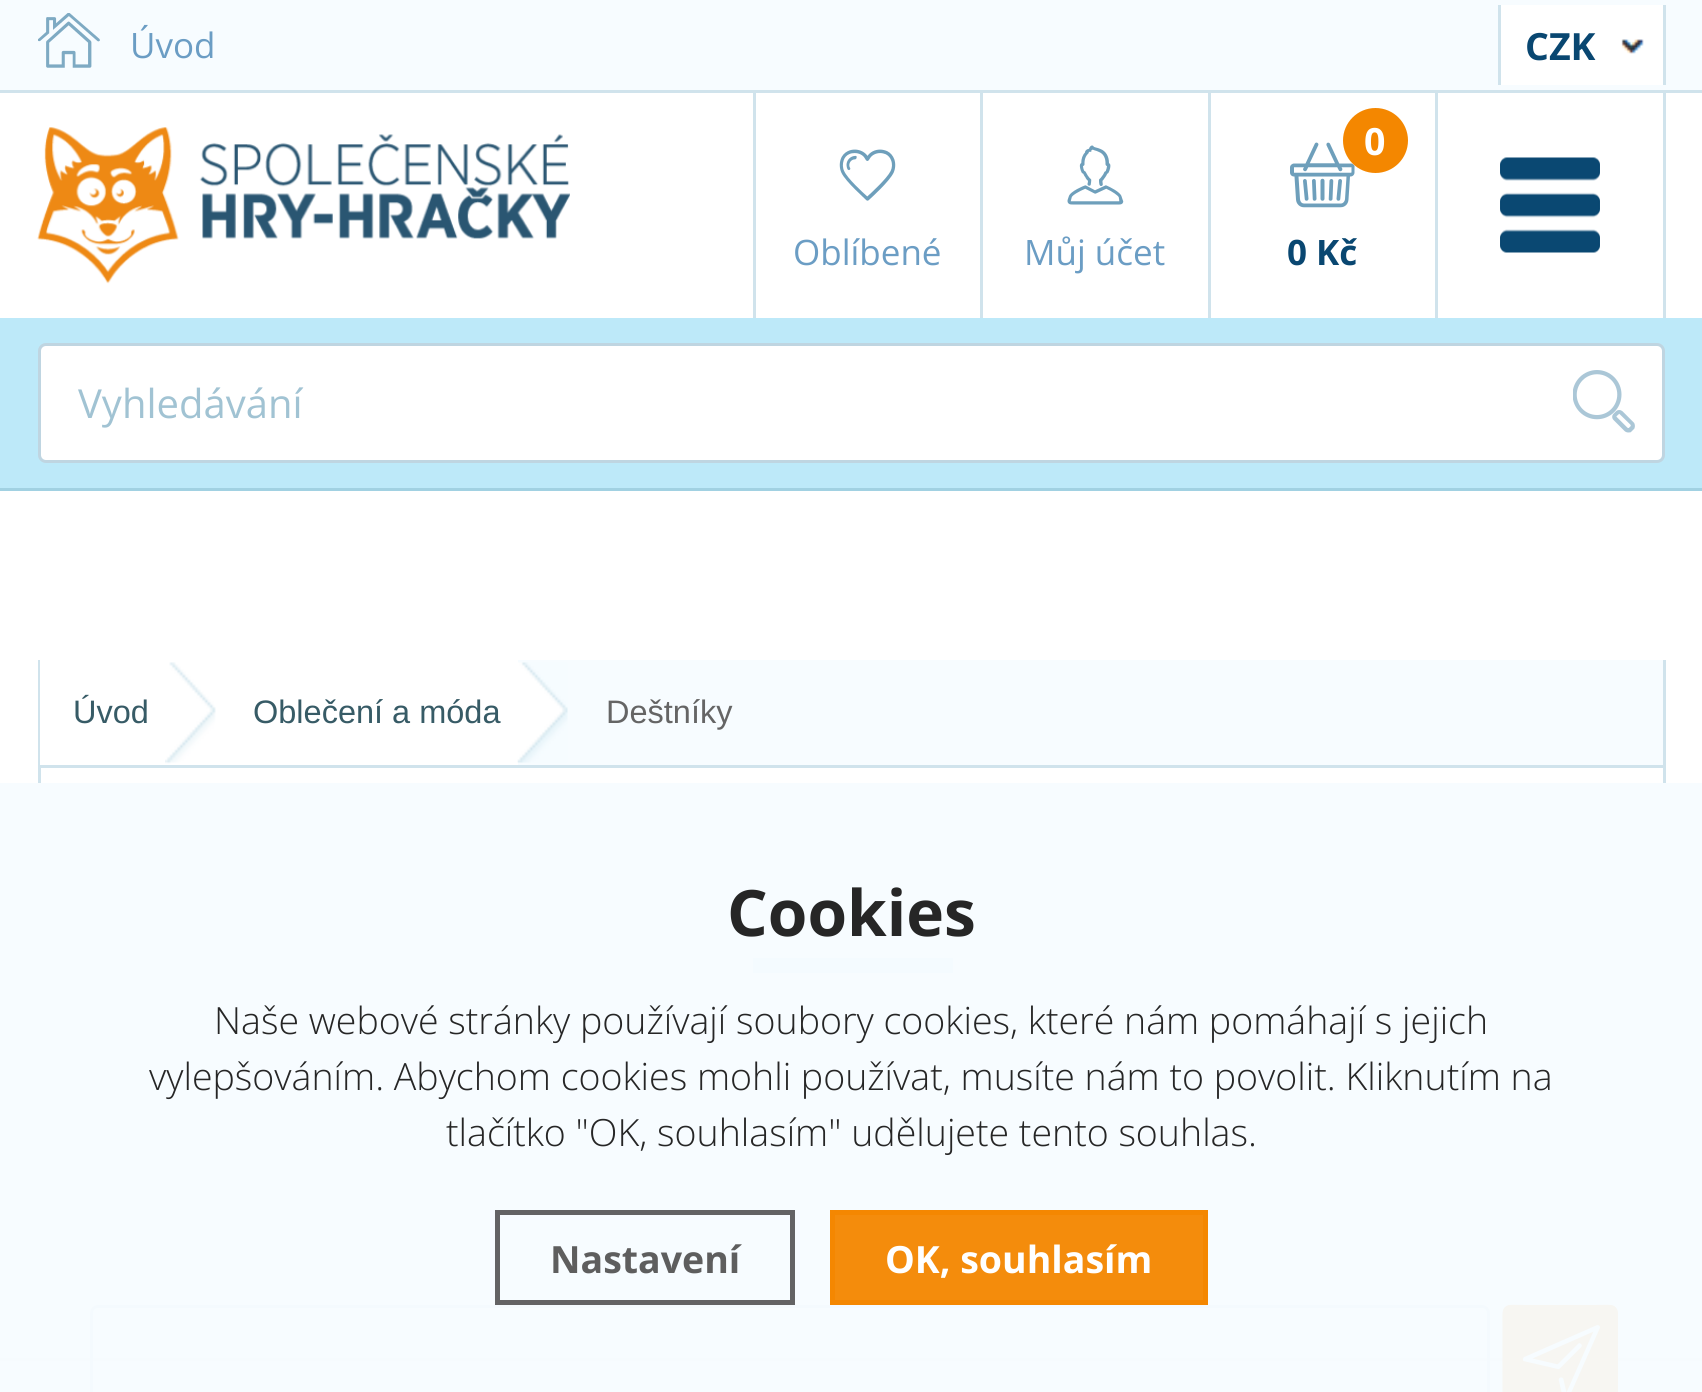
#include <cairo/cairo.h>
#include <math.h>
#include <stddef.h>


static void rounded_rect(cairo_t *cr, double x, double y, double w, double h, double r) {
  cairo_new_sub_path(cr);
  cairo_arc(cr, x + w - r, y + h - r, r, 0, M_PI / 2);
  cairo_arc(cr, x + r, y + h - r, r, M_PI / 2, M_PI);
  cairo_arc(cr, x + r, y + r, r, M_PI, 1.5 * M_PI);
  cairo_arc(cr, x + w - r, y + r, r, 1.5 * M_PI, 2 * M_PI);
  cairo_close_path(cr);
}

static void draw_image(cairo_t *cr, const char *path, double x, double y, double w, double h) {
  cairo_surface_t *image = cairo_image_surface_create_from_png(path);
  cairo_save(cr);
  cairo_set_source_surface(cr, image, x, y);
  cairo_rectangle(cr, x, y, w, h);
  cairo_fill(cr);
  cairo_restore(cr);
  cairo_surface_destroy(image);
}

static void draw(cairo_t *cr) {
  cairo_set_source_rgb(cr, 1, 1, 1);
  cairo_paint(cr);
  cairo_set_source_rgb(cr, 247 / 255.0, 252 / 255.0, 1);
  cairo_rectangle(cr, 0, 783, 1702, 575);
  cairo_fill(cr);
  cairo_rectangle(cr, 0, 0, 1702, 90);
  cairo_fill(cr);
  cairo_set_source_rgb(cr, 208 / 255.0, 227 / 255.0, 236 / 255.0);
  cairo_rectangle(cr, 0, 90, 1702, 3);
  cairo_fill(cr);
  draw_image(cr, "images/1.png", 38, 13, 62, 55);
  cairo_set_source_rgb(cr, 1, 1, 1);
  cairo_rectangle(cr, 1501, 5, 162, 80);
  cairo_fill(cr);
  cairo_set_source_rgb(cr, 208 / 255.0, 227 / 255.0, 236 / 255.0);
  cairo_rectangle(cr, 1663, 5, 3, 80);
  cairo_fill(cr);
  cairo_rectangle(cr, 1498, 5, 3, 80);
  cairo_fill(cr);
  draw_image(cr, "images/2.png", 1621, 39, 23, 15);
  draw_image(cr, "images/3.png", 37, 127, 533, 157);
  cairo_rectangle(cr, 753, 93, 3, 225);
  cairo_fill(cr);
  cairo_rectangle(cr, 980, 93, 3, 225);
  cairo_fill(cr);
  draw_image(cr, "images/4.png", 839, 149, 57, 52);
  cairo_rectangle(cr, 1208, 93, 3, 225);
  cairo_fill(cr);
  draw_image(cr, "images/5.png", 1067, 145, 57, 60);
  cairo_rectangle(cr, 1435, 93, 3, 225);
  cairo_fill(cr);
  draw_image(cr, "images/6.png", 1290, 142, 65, 66);
  cairo_set_source_rgb(cr, 244 / 255.0, 135 / 255.0, 0);
  cairo_arc(cr, 1375.5, 140.5, 32.5, 0, 2 * M_PI);
  cairo_fill(cr);
  cairo_set_source_rgb(cr, 208 / 255.0, 227 / 255.0, 236 / 255.0);
  cairo_rectangle(cr, 1663, 93, 3, 225);
  cairo_fill(cr);
  draw_image(cr, "images/7.png", 1500, 157, 100, 96);
  cairo_set_source_rgb(cr, 189 / 255.0, 233 / 255.0, 249 / 255.0);
  cairo_rectangle(cr, 0, 318, 1702, 170);
  cairo_fill(cr);
  cairo_set_source_rgb(cr, 1, 1, 1);
  rounded_rect(cr, 39.5, 344.5, 1624, 117, 6.5);
  cairo_fill_preserve(cr);
  cairo_set_source_rgb(cr, 191 / 255.0, 213 / 255.0, 225 / 255.0);
  cairo_set_line_width(cr, 3);
  cairo_stroke(cr);
  draw_image(cr, "images/8.png", 1573, 370, 62, 63);
  cairo_set_source_rgb(cr, 161 / 255.0, 209 / 255.0, 226 / 255.0);
  cairo_rectangle(cr, 0, 488, 1702, 3);
  cairo_fill(cr);
  cairo_set_source_rgb(cr, 208 / 255.0, 227 / 255.0, 236 / 255.0);
  cairo_rectangle(cr, 1663, 660, 3, 123);
  cairo_fill(cr);
  cairo_rectangle(cr, 38, 660, 3, 123);
  cairo_fill(cr);
  cairo_set_source_rgb(cr, 247 / 255.0, 252 / 255.0, 1);
  cairo_rectangle(cr, 518, 660, 1145, 105);
  cairo_fill(cr);
  cairo_set_source_rgb(cr, 208 / 255.0, 227 / 255.0, 236 / 255.0);
  cairo_rectangle(cr, 40, 765, 1623, 3);
  cairo_fill(cr);
  cairo_set_source_rgb(cr, 1, 1, 1);
  cairo_rectangle(cr, 40, 660, 1, 105);
  cairo_fill(cr);
  draw_image(cr, "images/9.png", 165, 662, 51, 102);
  draw_image(cr, "images/10.png", 517, 662, 51, 101);
  cairo_set_source_rgb(cr, 244 / 255.0, 251 / 255.0, 1);
  cairo_rectangle(cr, 753, 958, 200, 15);
  cairo_fill(cr);
  cairo_set_source_rgb(cr, 247 / 255.0, 252 / 255.0, 1);
  cairo_rectangle(cr, 0, 1361, 1702, 31);
  cairo_fill(cr);
  cairo_set_source_rgb(cr, 246 / 255.0, 251 / 255.0, 254 / 255.0);
  cairo_rectangle(cr, 0, 1358, 1702, 3);
  cairo_fill(cr);
  rounded_rect(cr, 91.5, 1306.5, 1397, 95, 6.5);
  cairo_set_source_rgb(cr, 244 / 255.0, 250 / 255.0, 254 / 255.0);
  cairo_stroke(cr);
  cairo_set_source_rgb(cr, 247 / 255.0, 246 / 255.0, 242 / 255.0);
  rounded_rect(cr, 1503, 1305, 115, 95, 8);
  cairo_fill(cr);
  cairo_new_path(cr);
  cairo_move_to(cr, 1506.5, 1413.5);
  cairo_curve_to(cr, 1502.5, 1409.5, 1505, 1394.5, 1505, 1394);
  cairo_line_to(cr, 1505, 1329);
  cairo_curve_to(cr, 1505, 1304, 1502, 1307.5, 1526.5, 1307.5);
  cairo_line_to(cr, 1593.5, 1307.5);
  cairo_curve_to(cr, 1618, 1307.5, 1615, 1304, 1615, 1329);
  cairo_line_to(cr, 1615, 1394);
  cairo_curve_to(cr, 1615, 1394.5, 1617.5, 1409.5, 1613.5, 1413.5);
  cairo_set_line_width(cr, 5);
  cairo_stroke(cr);
  draw_image(cr, "images/11.png", 1523, 1325, 77, 67);
  cairo_rectangle(cr, 497.5, 1212.5, 295, 90);
  cairo_set_source_rgba(cr, 92 / 255.0, 92 / 255.0, 93 / 255.0, 0.95);
  cairo_stroke(cr);
  cairo_set_source_rgba(cr, 244 / 255.0, 135 / 255.0, 0, 0.95);
  cairo_rectangle(cr, 832.5, 1212.5, 373, 90);
  cairo_fill_preserve(cr);
  cairo_set_source_rgb(cr, 244 / 255.0, 135 / 255.0, 1 / 255.0);
  cairo_stroke(cr);
  cairo_select_font_face(cr, "Open Sans", CAIRO_FONT_SLANT_NORMAL, CAIRO_FONT_WEIGHT_NORMAL);
  cairo_set_font_size(cr, 35);
  cairo_set_source_rgb(cr, 107 / 255.0, 157 / 255.0, 196 / 255.0);
  cairo_move_to(cr, 130, 58);
  cairo_show_text(cr, "Úvod");
  cairo_select_font_face(cr, "Open Sans", CAIRO_FONT_SLANT_NORMAL, CAIRO_FONT_WEIGHT_BOLD);
  cairo_set_font_size(cr, 37.5);
  cairo_set_source_rgb(cr, 9 / 255.0, 71 / 255.0, 113 / 255.0);
  cairo_move_to(cr, 1525, 60);
  cairo_show_text(cr, "CZK");
  cairo_select_font_face(cr, "Open Sans", CAIRO_FONT_SLANT_NORMAL, CAIRO_FONT_WEIGHT_NORMAL);
  cairo_set_font_size(cr, 35);
  cairo_set_source_rgb(cr, 107 / 255.0, 157 / 255.0, 196 / 255.0);
  cairo_move_to(cr, 793, 265);
  cairo_show_text(cr, "Oblíbené");
  cairo_move_to(cr, 1024, 265);
  cairo_show_text(cr, "Můj účet");
  cairo_select_font_face(cr, "Open Sans", CAIRO_FONT_SLANT_NORMAL, CAIRO_FONT_WEIGHT_BOLD);
  cairo_set_font_size(cr, 37.5);
  cairo_set_source_rgb(cr, 1, 1, 1);
  cairo_move_to(cr, 1364, 155);
  cairo_show_text(cr, "0");
  cairo_set_font_size(cr, 35);
  cairo_set_source_rgb(cr, 9 / 255.0, 71 / 255.0, 113 / 255.0);
  cairo_move_to(cr, 1287, 265);
  cairo_show_text(cr, "0 Kč");
  cairo_select_font_face(cr, "Open Sans", CAIRO_FONT_SLANT_NORMAL, CAIRO_FONT_WEIGHT_NORMAL);
  cairo_set_font_size(cr, 40);
  cairo_set_source_rgb(cr, 161 / 255.0, 195 / 255.0, 211 / 255.0);
  cairo_move_to(cr, 78, 418);
  cairo_show_text(cr, "Vyhledávání");
  cairo_select_font_face(cr, "Liberation Sans", CAIRO_FONT_SLANT_NORMAL, CAIRO_FONT_WEIGHT_NORMAL);
  cairo_set_font_size(cr, 32.5);
  cairo_set_source_rgb(cr, 55 / 255.0, 91 / 255.0, 102 / 255.0);
  cairo_move_to(cr, 73, 723);
  cairo_show_text(cr, "Úvod");
  cairo_move_to(cr, 253, 723);
  cairo_show_text(cr, "Oblečení a móda");
  cairo_set_source_rgb(cr, 101 / 255.0, 101 / 255.0, 101 / 255.0);
  cairo_move_to(cr, 606, 723);
  cairo_show_text(cr, "Deštníky");
  cairo_select_font_face(cr, "Open Sans", CAIRO_FONT_SLANT_NORMAL, CAIRO_FONT_WEIGHT_BOLD);
  cairo_set_font_size(cr, 64);
  cairo_set_source_rgb(cr, 38 / 255.0, 38 / 255.0, 38 / 255.0);
  cairo_move_to(cr, 727, 936);
  cairo_show_text(cr, "Cookies");
  cairo_select_font_face(cr, "Open Sans Light", CAIRO_FONT_SLANT_NORMAL, CAIRO_FONT_WEIGHT_NORMAL);
  cairo_set_font_size(cr, 37.5);
  cairo_move_to(cr, 214, 1034);
  cairo_show_text(cr, "Naše webové stránky používají soubory cookies, které nám pomáhají s jejich");
  cairo_move_to(cr, 149, 1090);
  cairo_show_text(cr, "vylepšováním. Abychom cookies mohli používat, musíte nám to povolit. Kliknutím na");
  cairo_move_to(cr, 446, 1146);
  cairo_show_text(cr, "tlačítko \"OK, souhlasím\" udělujete tento souhlas.");
  cairo_select_font_face(cr, "Open Sans", CAIRO_FONT_SLANT_NORMAL, CAIRO_FONT_WEIGHT_BOLD);
  cairo_set_source_rgb(cr, 94 / 255.0, 94 / 255.0, 94 / 255.0);
  cairo_move_to(cr, 550, 1273);
  cairo_show_text(cr, "Nastavení");
  cairo_set_source_rgb(cr, 1, 1, 1);
  cairo_move_to(cr, 885, 1273);
  cairo_show_text(cr, "OK, souhlasím");
}

int main(void) {
  cairo_surface_t *surface = cairo_image_surface_create(CAIRO_FORMAT_RGB24, 1702, 1392);
  cairo_t *cr = cairo_create(surface);
  cairo_font_options_t *options = cairo_font_options_create();
  cairo_font_options_set_hint_metrics(options, CAIRO_HINT_METRICS_OFF);
  cairo_font_options_set_hint_style(options, CAIRO_HINT_STYLE_NONE);
  cairo_set_font_options(cr, options);
  cairo_set_miter_limit(cr, 4);
  draw(cr);
  cairo_surface_write_to_png(surface, "out.png");
  cairo_font_options_destroy(options);
  cairo_destroy(cr);
  cairo_surface_destroy(surface);
  return 0;
}
